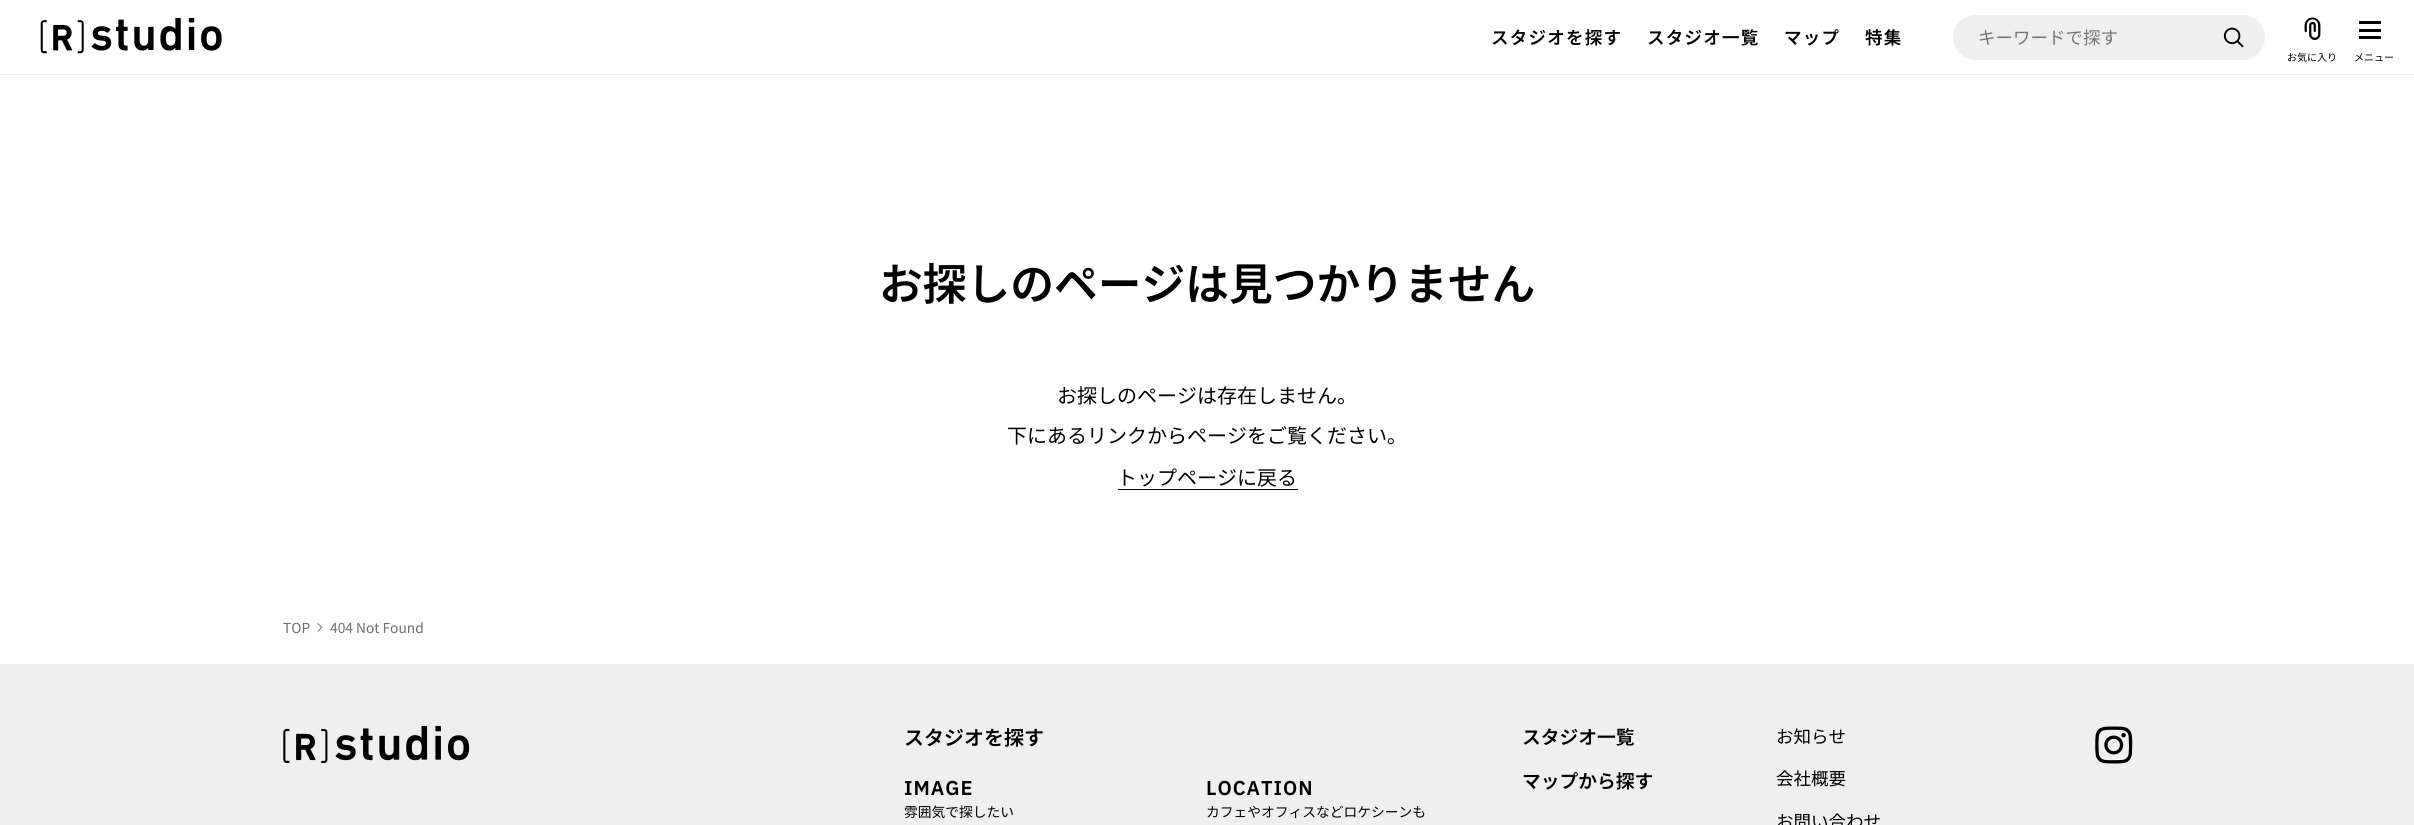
#include <cairo/cairo.h>
#include <math.h>
#include <stddef.h>


static void draw_spaced(cairo_t *cr, double x, double y, const char *s, double letter, double word) {
  cairo_move_to(cr, x, y);
  while (*s) {
    char ch[5] = {0};
    int n = 0;
    do ch[n++] = *s++; while ((*s & 0xC0) == 0x80);
    cairo_show_text(cr, ch);
    cairo_rel_move_to(cr, letter + word * (*ch == ' '), 0);
  }
}

static void rounded_rect(cairo_t *cr, double x, double y, double w, double h, double r) {
  cairo_new_sub_path(cr);
  cairo_arc(cr, x + w - r, y + h - r, r, 0, M_PI / 2);
  cairo_arc(cr, x + r, y + h - r, r, M_PI / 2, M_PI);
  cairo_arc(cr, x + r, y + r, r, M_PI, 1.5 * M_PI);
  cairo_arc(cr, x + w - r, y + r, r, 1.5 * M_PI, 2 * M_PI);
  cairo_close_path(cr);
}

static void draw_image(cairo_t *cr, const char *path, double x, double y, double w, double h) {
  cairo_surface_t *image = cairo_image_surface_create_from_png(path);
  cairo_save(cr);
  cairo_set_source_surface(cr, image, x, y);
  cairo_rectangle(cr, x, y, w, h);
  cairo_fill(cr);
  cairo_restore(cr);
  cairo_surface_destroy(image);
}

static void draw(cairo_t *cr) {
  cairo_set_source_rgb(cr, 1, 1, 1);
  cairo_paint(cr);
  cairo_set_source_rgb(cr, 239 / 255.0, 239 / 255.0, 239 / 255.0);
  cairo_rectangle(cr, 0, 74, 2414, 1);
  cairo_fill(cr);
  draw_image(cr, "images/1.png", 40, 18, 182, 36);
  rounded_rect(cr, 1953, 15, 312, 45, 22.5);
  cairo_fill(cr);
  draw_image(cr, "images/2.png", 2223, 27, 21, 21);
  cairo_set_source_rgb(cr, 0, 0, 0);
  cairo_rectangle(cr, 2359, 21, 22, 3);
  cairo_fill(cr);
  cairo_rectangle(cr, 2359, 29, 22, 3);
  cairo_fill(cr);
  cairo_rectangle(cr, 2359, 36, 22, 3);
  cairo_fill(cr);
  cairo_set_source_rgb(cr, 1, 1, 1);
  cairo_new_path(cr);
  cairo_move_to(cr, 2379.5, 34.5);
  cairo_line_to(cr, 2392.5, 21);
  cairo_line_to(cr, 2394.5, 23);
  cairo_line_to(cr, 2381, 36.5);
  cairo_close_path(cr);
  cairo_fill(cr);
  draw_image(cr, "images/3.png", 2304, 17, 17, 23);
  cairo_set_source_rgb(cr, 0, 0, 0);
  cairo_rectangle(cr, 1118, 489, 180, 1);
  cairo_fill(cr);
  draw_image(cr, "images/4.png", 317, 623, 6, 9);
  cairo_set_source_rgb(cr, 239 / 255.0, 239 / 255.0, 239 / 255.0);
  cairo_rectangle(cr, 0, 664, 2414, 161);
  cairo_fill(cr);
  draw_image(cr, "images/5.png", 283, 726, 187, 37);
  draw_image(cr, "images/6.png", 2095, 726, 38, 38);
  cairo_select_font_face(cr, "Noto Sans JP SemiBold", CAIRO_FONT_SLANT_NORMAL, CAIRO_FONT_WEIGHT_NORMAL);
  cairo_set_font_size(cr, 17.5);
  cairo_set_source_rgb(cr, 0, 0, 0);
  draw_spaced(cr, 1491, 44, "スタジオを探す", 1.25, 0);
  draw_spaced(cr, 1647, 44, "スタジオ一覧", 1.25, 0);
  draw_spaced(cr, 1784, 44, "マップ", 1.25, 0);
  draw_spaced(cr, 1865, 44, "特集", 1.25, 0);
  cairo_select_font_face(cr, "Noto Sans JP", CAIRO_FONT_SLANT_NORMAL, CAIRO_FONT_WEIGHT_NORMAL);
  cairo_set_source_rgb(cr, 117 / 255.0, 117 / 255.0, 117 / 255.0);
  cairo_move_to(cr, 1978, 44);
  cairo_show_text(cr, "キーワードで探す");
  cairo_set_font_size(cr, 10);
  cairo_set_source_rgb(cr, 0, 0, 0);
  cairo_move_to(cr, 2287, 61);
  cairo_show_text(cr, "お気に入り");
  cairo_move_to(cr, 2354, 61);
  cairo_show_text(cr, "メニュー");
  cairo_select_font_face(cr, "Noto Sans JP SemiBold", CAIRO_FONT_SLANT_NORMAL, CAIRO_FONT_WEIGHT_NORMAL);
  cairo_set_font_size(cr, 43.75);
  cairo_move_to(cr, 879, 300);
  cairo_show_text(cr, "お探しのページは見つかりません");
  cairo_select_font_face(cr, "Noto Sans JP", CAIRO_FONT_SLANT_NORMAL, CAIRO_FONT_WEIGHT_NORMAL);
  cairo_set_font_size(cr, 20);
  cairo_move_to(cr, 1057, 403);
  cairo_show_text(cr, "お探しのページは存在しません。");
  cairo_move_to(cr, 1007, 443);
  cairo_show_text(cr, "下にあるリンクからページをご覧ください。");
  cairo_move_to(cr, 1117, 485);
  cairo_show_text(cr, "トップページに戻る");
  cairo_set_font_size(cr, 13.75);
  cairo_set_source_rgb(cr, 110 / 255.0, 110 / 255.0, 110 / 255.0);
  cairo_move_to(cr, 283, 633);
  cairo_show_text(cr, "TOP");
  cairo_move_to(cr, 330, 633);
  cairo_show_text(cr, "404 Not Found");
  cairo_select_font_face(cr, "Noto Sans JP SemiBold", CAIRO_FONT_SLANT_NORMAL, CAIRO_FONT_WEIGHT_NORMAL);
  cairo_set_font_size(cr, 20);
  cairo_set_source_rgb(cr, 0, 0, 0);
  cairo_move_to(cr, 904, 745);
  cairo_show_text(cr, "スタジオを探す");
  cairo_select_font_face(cr, "IBM Plex Sans SemiBold", CAIRO_FONT_SLANT_NORMAL, CAIRO_FONT_WEIGHT_NORMAL);
  draw_spaced(cr, 904, 795, "IMAGE", 1, 0);
  cairo_select_font_face(cr, "Noto Sans JP", CAIRO_FONT_SLANT_NORMAL, CAIRO_FONT_WEIGHT_NORMAL);
  cairo_set_font_size(cr, 13.75);
  cairo_move_to(cr, 904, 817);
  cairo_show_text(cr, "雰囲気で探したい");
  cairo_select_font_face(cr, "IBM Plex Sans SemiBold", CAIRO_FONT_SLANT_NORMAL, CAIRO_FONT_WEIGHT_NORMAL);
  cairo_set_font_size(cr, 20);
  draw_spaced(cr, 1206, 795, "LOCATION", 1, 0);
  cairo_select_font_face(cr, "Noto Sans JP", CAIRO_FONT_SLANT_NORMAL, CAIRO_FONT_WEIGHT_NORMAL);
  cairo_set_font_size(cr, 13.75);
  cairo_move_to(cr, 1206, 817);
  cairo_show_text(cr, "カフェやオフィスなどロケシーンも");
  cairo_select_font_face(cr, "Noto Sans JP SemiBold", CAIRO_FONT_SLANT_NORMAL, CAIRO_FONT_WEIGHT_NORMAL);
  cairo_set_font_size(cr, 18.75);
  cairo_move_to(cr, 1522, 744);
  cairo_show_text(cr, "スタジオ一覧");
  cairo_move_to(cr, 1522, 788);
  cairo_show_text(cr, "マップから探す");
  cairo_select_font_face(cr, "Noto Sans JP", CAIRO_FONT_SLANT_NORMAL, CAIRO_FONT_WEIGHT_NORMAL);
  cairo_set_font_size(cr, 17.5);
  cairo_move_to(cr, 1776, 743);
  cairo_show_text(cr, "お知らせ");
  cairo_move_to(cr, 1776, 785);
  cairo_show_text(cr, "会社概要");
  cairo_move_to(cr, 1776, 828);
  cairo_show_text(cr, "お問い合わせ");
}

int main(void) {
  cairo_surface_t *surface = cairo_image_surface_create(CAIRO_FORMAT_RGB24, 2414, 825);
  cairo_t *cr = cairo_create(surface);
  cairo_font_options_t *options = cairo_font_options_create();
  cairo_font_options_set_hint_metrics(options, CAIRO_HINT_METRICS_OFF);
  cairo_font_options_set_hint_style(options, CAIRO_HINT_STYLE_NONE);
  cairo_set_font_options(cr, options);
  cairo_set_miter_limit(cr, 4);
  draw(cr);
  cairo_surface_write_to_png(surface, "out.png");
  cairo_font_options_destroy(options);
  cairo_destroy(cr);
  cairo_surface_destroy(surface);
  return 0;
}
